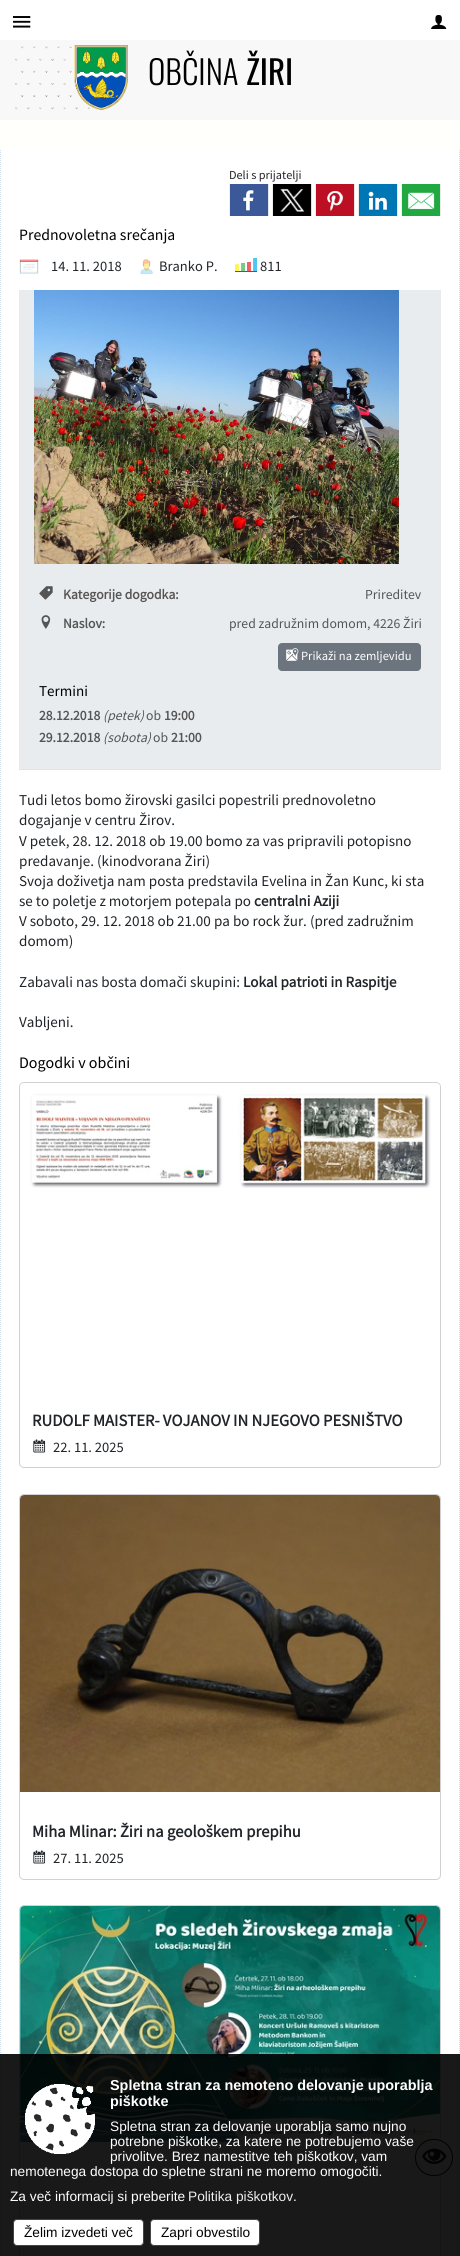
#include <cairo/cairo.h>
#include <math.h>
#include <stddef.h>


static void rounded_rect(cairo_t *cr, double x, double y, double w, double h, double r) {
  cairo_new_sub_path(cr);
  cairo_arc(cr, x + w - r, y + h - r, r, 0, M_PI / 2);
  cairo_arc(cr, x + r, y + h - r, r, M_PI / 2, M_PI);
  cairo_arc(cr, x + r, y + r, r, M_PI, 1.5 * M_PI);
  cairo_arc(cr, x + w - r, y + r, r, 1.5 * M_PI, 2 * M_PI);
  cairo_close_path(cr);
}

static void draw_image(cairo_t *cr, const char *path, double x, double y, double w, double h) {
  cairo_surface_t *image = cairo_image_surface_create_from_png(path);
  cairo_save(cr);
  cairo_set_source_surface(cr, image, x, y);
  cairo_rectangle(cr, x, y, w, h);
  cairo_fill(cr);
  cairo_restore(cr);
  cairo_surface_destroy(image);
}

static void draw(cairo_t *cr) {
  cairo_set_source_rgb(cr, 1, 1, 252 / 255.0);
  cairo_paint(cr);
  cairo_set_source_rgb(cr, 1, 1, 1);
  cairo_rectangle(cr, 0, 0, 460, 40);
  cairo_fill(cr);
  draw_image(cr, "images/1.png", 13, 16, 18, 12);
  draw_image(cr, "images/2.png", 431, 15, 16, 14);
  cairo_set_source_rgb(cr, 248 / 255.0, 248 / 255.0, 248 / 255.0);
  cairo_rectangle(cr, 0, 40, 460, 80);
  cairo_fill(cr);
  draw_image(cr, "images/3.png", 15, 45, 113, 65);
  cairo_set_source_rgb(cr, 1, 1, 1);
  cairo_rectangle(cr, 0, 150, 460, 2106);
  cairo_fill(cr);
  cairo_new_path(cr);
  cairo_move_to(cr, 459.5, 150);
  cairo_line_to(cr, 459.5, 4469);
  cairo_set_source_rgb(cr, 213 / 255.0, 224 / 255.0, 239 / 255.0);
  cairo_set_line_width(cr, 1);
  cairo_set_dash(cr, (double[]){1, 1}, 2, 0);
  cairo_stroke(cr);
  cairo_new_path(cr);
  cairo_move_to(cr, 0.5, 150);
  cairo_line_to(cr, 0.5, 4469);
  cairo_stroke(cr);
  cairo_set_source_rgb(cr, 239 / 255.0, 239 / 255.0, 239 / 255.0);
  cairo_rectangle(cr, 229, 184, 40, 32);
  cairo_fill(cr);
  draw_image(cr, "images/4.png", 230, 184, 39, 32);
  cairo_rectangle(cr, 272, 184, 40, 32);
  cairo_fill(cr);
  draw_image(cr, "images/5.png", 273, 184, 39, 32);
  cairo_rectangle(cr, 315, 184, 40, 32);
  cairo_fill(cr);
  draw_image(cr, "images/6.png", 316, 184, 39, 32);
  cairo_rectangle(cr, 358, 184, 40, 32);
  cairo_fill(cr);
  draw_image(cr, "images/7.png", 359, 184, 39, 32);
  cairo_rectangle(cr, 401, 184, 40, 32);
  cairo_fill(cr);
  draw_image(cr, "images/8.png", 402, 184, 39, 32);
  draw_image(cr, "images/9.png", 19, 259, 20, 15);
  draw_image(cr, "images/10.png", 140, 259, 13, 15);
  draw_image(cr, "images/11.png", 235, 258, 22, 14);
  cairo_set_source_rgb(cr, 233 / 255.0, 236 / 255.0, 239 / 255.0);
  cairo_rectangle(cr, 19, 290, 422, 480);
  cairo_fill(cr);
  draw_image(cr, "images/12.png", 34, 290, 365, 274);
  cairo_new_path(cr);
  cairo_move_to(cr, 19, 769.5);
  cairo_line_to(cr, 441, 769.5);
  cairo_set_source_rgb(cr, 211 / 255.0, 223 / 255.0, 237 / 255.0);
  cairo_stroke(cr);
  draw_image(cr, "images/13.png", 39, 586, 14, 14);
  draw_image(cr, "images/14.png", 41, 615, 10, 14);
  cairo_set_source_rgb(cr, 108 / 255.0, 117 / 255.0, 125 / 255.0);
  rounded_rect(cr, 278.5, 643.5, 142, 27, 3.5);
  cairo_fill_preserve(cr);
  cairo_set_dash(cr, NULL, 0, 0);
  cairo_stroke(cr);
  draw_image(cr, "images/15.png", 286, 648, 13, 13);
  rounded_rect(cr, 19.5, 1082.5, 421, 385, 4.5);
  cairo_set_source_rgb(cr, 210 / 255.0, 210 / 255.0, 210 / 255.0);
  cairo_stroke(cr);
  draw_image(cr, "images/16.png", 20, 1083, 420, 105);
  draw_image(cr, "images/17.png", 33, 1439, 13, 14);
  rounded_rect(cr, 19.5, 1494.5, 421, 385, 4.5);
  cairo_stroke(cr);
  draw_image(cr, "images/18.png", 20, 1495, 420, 297);
  draw_image(cr, "images/17.png", 33, 1850, 13, 14);
  rounded_rect(cr, 19.5, 1905.5, 421, 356, 4.5);
  cairo_stroke(cr);
  draw_image(cr, "images/19.png", 20, 1906, 420, 236);
  cairo_set_source_rgb(cr, 1, 1, 1);
  rounded_rect(cr, 415.5, 2139.5, 37, 36, 18);
  cairo_fill_preserve(cr);
  cairo_set_source_rgb(cr, 17 / 255.0, 17 / 255.0, 17 / 255.0);
  cairo_stroke(cr);
  draw_image(cr, "images/21.png", 422, 2148, 25, 16);
  cairo_set_source_rgba(cr, 0, 0, 0, 0.9);
  cairo_rectangle(cr, 0, 2054, 460, 202);
  cairo_fill(cr);
  draw_image(cr, "images/20.png", 25, 2084, 70, 70);
  cairo_set_source_rgb(cr, 1, 1, 1);
  rounded_rect(cr, 13.5, 2219.5, 130, 26, 3.5);
  cairo_fill_preserve(cr);
  cairo_set_source_rgb(cr, 68 / 255.0, 68 / 255.0, 68 / 255.0);
  cairo_stroke(cr);
  cairo_set_source_rgb(cr, 1, 1, 1);
  rounded_rect(cr, 150.5, 2219.5, 109, 26, 3.5);
  cairo_fill_preserve(cr);
  cairo_set_source_rgb(cr, 68 / 255.0, 68 / 255.0, 68 / 255.0);
  cairo_stroke(cr);
  cairo_select_font_face(cr, "Oswald Light", CAIRO_FONT_SLANT_NORMAL, CAIRO_FONT_WEIGHT_NORMAL);
  cairo_set_font_size(cr, 33);
  cairo_set_source_rgb(cr, 0, 0, 0);
  cairo_move_to(cr, 148, 85);
  cairo_show_text(cr, "OBČINA");
  cairo_select_font_face(cr, "Oswald", CAIRO_FONT_SLANT_NORMAL, CAIRO_FONT_WEIGHT_NORMAL);
  cairo_move_to(cr, 246, 85);
  cairo_show_text(cr, "ŽIRI");
  cairo_select_font_face(cr, "Source Sans Pro", CAIRO_FONT_SLANT_NORMAL, CAIRO_FONT_WEIGHT_NORMAL);
  cairo_set_font_size(cr, 12.25);
  cairo_set_source_rgb(cr, 33 / 255.0, 37 / 255.0, 41 / 255.0);
  cairo_move_to(cr, 229, 179);
  cairo_show_text(cr, "Deli s prijatelji");
  cairo_set_font_size(cr, 15.75);
  cairo_set_source_rgb(cr, 0, 0, 0);
  cairo_move_to(cr, 19, 240);
  cairo_show_text(cr, "Prednovoletna srečanja");
  cairo_set_font_size(cr, 14.5);
  cairo_set_source_rgb(cr, 33 / 255.0, 37 / 255.0, 41 / 255.0);
  cairo_move_to(cr, 51, 271);
  cairo_show_text(cr, "14. 11. 2018");
  cairo_move_to(cr, 159, 271);
  cairo_show_text(cr, "Branko P.");
  cairo_move_to(cr, 260, 271);
  cairo_show_text(cr, "811");
  cairo_select_font_face(cr, "Source Sans Pro", CAIRO_FONT_SLANT_NORMAL, CAIRO_FONT_WEIGHT_BOLD);
  cairo_set_font_size(cr, 13.7);
  cairo_set_source_rgb(cr, 85 / 255.0, 85 / 255.0, 85 / 255.0);
  cairo_move_to(cr, 63, 599);
  cairo_show_text(cr, "Kategorije dogodka:");
  cairo_select_font_face(cr, "Source Sans Pro", CAIRO_FONT_SLANT_NORMAL, CAIRO_FONT_WEIGHT_NORMAL);
  cairo_move_to(cr, 365, 599);
  cairo_show_text(cr, "Prireditev");
  cairo_select_font_face(cr, "Source Sans Pro", CAIRO_FONT_SLANT_NORMAL, CAIRO_FONT_WEIGHT_BOLD);
  cairo_move_to(cr, 63, 628);
  cairo_show_text(cr, "Naslov:");
  cairo_select_font_face(cr, "Source Sans Pro", CAIRO_FONT_SLANT_NORMAL, CAIRO_FONT_WEIGHT_NORMAL);
  cairo_move_to(cr, 229, 628);
  cairo_show_text(cr, "pred zadružnim domom, 4226 Žiri");
  cairo_set_font_size(cr, 12.5);
  cairo_set_source_rgb(cr, 1, 1, 1);
  cairo_move_to(cr, 301, 660);
  cairo_show_text(cr, "Prikaži na zemljevidu");
  cairo_set_font_size(cr, 15.1);
  cairo_set_source_rgb(cr, 0, 0, 0);
  cairo_move_to(cr, 39, 696);
  cairo_show_text(cr, "Termini");
  cairo_select_font_face(cr, "Source Sans Pro", CAIRO_FONT_SLANT_NORMAL, CAIRO_FONT_WEIGHT_BOLD);
  cairo_set_font_size(cr, 13.7);
  cairo_set_source_rgb(cr, 85 / 255.0, 85 / 255.0, 85 / 255.0);
  cairo_move_to(cr, 39, 720);
  cairo_show_text(cr, "28.12.2018");
  cairo_select_font_face(cr, "Source Sans Pro", CAIRO_FONT_SLANT_ITALIC, CAIRO_FONT_WEIGHT_NORMAL);
  cairo_move_to(cr, 103, 720);
  cairo_show_text(cr, "(petek)");
  cairo_select_font_face(cr, "Source Sans Pro", CAIRO_FONT_SLANT_NORMAL, CAIRO_FONT_WEIGHT_NORMAL);
  cairo_move_to(cr, 146, 720);
  cairo_show_text(cr, "ob");
  cairo_select_font_face(cr, "Source Sans Pro", CAIRO_FONT_SLANT_NORMAL, CAIRO_FONT_WEIGHT_BOLD);
  cairo_move_to(cr, 164, 720);
  cairo_show_text(cr, "19:00");
  cairo_move_to(cr, 39, 742);
  cairo_show_text(cr, "29.12.2018");
  cairo_select_font_face(cr, "Source Sans Pro", CAIRO_FONT_SLANT_ITALIC, CAIRO_FONT_WEIGHT_NORMAL);
  cairo_move_to(cr, 103, 742);
  cairo_show_text(cr, "(sobota)");
  cairo_select_font_face(cr, "Source Sans Pro", CAIRO_FONT_SLANT_NORMAL, CAIRO_FONT_WEIGHT_NORMAL);
  cairo_move_to(cr, 153, 742);
  cairo_show_text(cr, "ob");
  cairo_select_font_face(cr, "Source Sans Pro", CAIRO_FONT_SLANT_NORMAL, CAIRO_FONT_WEIGHT_BOLD);
  cairo_move_to(cr, 171, 742);
  cairo_show_text(cr, "21:00");
  cairo_select_font_face(cr, "Source Sans Pro", CAIRO_FONT_SLANT_NORMAL, CAIRO_FONT_WEIGHT_NORMAL);
  cairo_set_font_size(cr, 15.1);
  cairo_set_source_rgb(cr, 33 / 255.0, 37 / 255.0, 41 / 255.0);
  cairo_move_to(cr, 19, 805);
  cairo_show_text(cr, "Tudi letos bomo žirovski gasilci popestrili prednovoletno");
  cairo_move_to(cr, 19, 825);
  cairo_show_text(cr, "dogajanje v centru Žirov.");
  cairo_move_to(cr, 19, 846);
  cairo_show_text(cr, "V petek, 28. 12. 2018 ob 19.00 bomo za vas pripravili potopisno");
  cairo_move_to(cr, 19, 866);
  cairo_show_text(cr, "predavanje. (kinodvorana Žiri)");
  cairo_move_to(cr, 19, 886);
  cairo_show_text(cr, "Svoja doživetja nam posta predstavila Evelina in Žan Kunc, ki sta");
  cairo_move_to(cr, 19, 906);
  cairo_show_text(cr, "se to poletje z motorjem potepala po");
  cairo_select_font_face(cr, "Source Sans Pro", CAIRO_FONT_SLANT_NORMAL, CAIRO_FONT_WEIGHT_BOLD);
  cairo_move_to(cr, 254, 906);
  cairo_show_text(cr, "centralni Aziji");
  cairo_select_font_face(cr, "Source Sans Pro", CAIRO_FONT_SLANT_NORMAL, CAIRO_FONT_WEIGHT_NORMAL);
  cairo_move_to(cr, 19, 926);
  cairo_show_text(cr, "V soboto, 29. 12. 2018 ob 21.00 pa bo rock žur. (pred zadružnim");
  cairo_move_to(cr, 19, 946);
  cairo_show_text(cr, "domom)");
  cairo_move_to(cr, 19, 987);
  cairo_show_text(cr, "Zabavali nas bosta domači skupini:");
  cairo_select_font_face(cr, "Source Sans Pro", CAIRO_FONT_SLANT_NORMAL, CAIRO_FONT_WEIGHT_BOLD);
  cairo_move_to(cr, 243, 987);
  cairo_show_text(cr, "Lokal patrioti in Raspitje");
  cairo_select_font_face(cr, "Source Sans Pro", CAIRO_FONT_SLANT_NORMAL, CAIRO_FONT_WEIGHT_NORMAL);
  cairo_move_to(cr, 19, 1027);
  cairo_show_text(cr, "Vabljeni.");
  cairo_set_font_size(cr, 16);
  cairo_set_source_rgb(cr, 0, 0, 0);
  cairo_move_to(cr, 19, 1068);
  cairo_show_text(cr, "Dogodki v občini");
  cairo_select_font_face(cr, "Source Sans Pro", CAIRO_FONT_SLANT_NORMAL, CAIRO_FONT_WEIGHT_BOLD);
  cairo_set_font_size(cr, 16.6);
  cairo_set_source_rgb(cr, 33 / 255.0, 37 / 255.0, 41 / 255.0);
  cairo_move_to(cr, 32, 1426);
  cairo_show_text(cr, "RUDOLF MAISTER- VOJANOV IN NJEGOVO PESNIŠTVO");
  cairo_select_font_face(cr, "Source Sans Pro", CAIRO_FONT_SLANT_NORMAL, CAIRO_FONT_WEIGHT_NORMAL);
  cairo_set_font_size(cr, 14.5);
  cairo_move_to(cr, 53, 1452);
  cairo_show_text(cr, "22. 11. 2025");
  cairo_select_font_face(cr, "Source Sans Pro", CAIRO_FONT_SLANT_NORMAL, CAIRO_FONT_WEIGHT_BOLD);
  cairo_set_font_size(cr, 16.6);
  cairo_move_to(cr, 32, 1837);
  cairo_show_text(cr, "Miha Mlinar: Žiri na geološkem prepihu");
  cairo_select_font_face(cr, "Source Sans Pro", CAIRO_FONT_SLANT_NORMAL, CAIRO_FONT_WEIGHT_NORMAL);
  cairo_set_font_size(cr, 14.5);
  cairo_move_to(cr, 53, 1863);
  cairo_show_text(cr, "27. 11. 2025");
  cairo_select_font_face(cr, "Liberation Sans", CAIRO_FONT_SLANT_NORMAL, CAIRO_FONT_WEIGHT_BOLD);
  cairo_set_font_size(cr, 14.4);
  cairo_set_source_rgb(cr, 1, 1, 1);
  cairo_move_to(cr, 110, 2090);
  cairo_show_text(cr, "Spletna stran za nemoteno delovanje uporablja");
  cairo_move_to(cr, 110, 2106);
  cairo_show_text(cr, "piškotke");
  cairo_select_font_face(cr, "Liberation Sans", CAIRO_FONT_SLANT_NORMAL, CAIRO_FONT_WEIGHT_NORMAL);
  cairo_set_font_size(cr, 13.7);
  cairo_move_to(cr, 110, 2131);
  cairo_show_text(cr, "Spletna stran za delovanje uporablja samo nujno");
  cairo_move_to(cr, 110, 2146);
  cairo_show_text(cr, "potrebne piškotke, za katere ne potrebujemo vaše");
  cairo_move_to(cr, 110, 2161);
  cairo_show_text(cr, "privolitve. Brez namestitve teh piškotkov, vam");
  cairo_move_to(cr, 10, 2176);
  cairo_show_text(cr, "nemotenega dostopa do spletne strani ne moremo omogočiti.");
  cairo_move_to(cr, 10, 2201);
  cairo_show_text(cr, "Za več informacij si preberite");
  cairo_set_source_rgb(cr, 238 / 255.0, 238 / 255.0, 238 / 255.0);
  cairo_move_to(cr, 188, 2201);
  cairo_show_text(cr, "Politika piškotkov");
  cairo_set_source_rgb(cr, 1, 1, 1);
  cairo_move_to(cr, 293, 2201);
  cairo_show_text(cr, ".");
  cairo_set_source_rgb(cr, 0, 0, 0);
  cairo_move_to(cr, 24, 2237);
  cairo_show_text(cr, "Želim izvedeti več");
  cairo_move_to(cr, 161, 2237);
  cairo_show_text(cr, "Zapri obvestilo");
}

int main(void) {
  cairo_surface_t *surface = cairo_image_surface_create(CAIRO_FORMAT_RGB24, 460, 2256);
  cairo_t *cr = cairo_create(surface);
  cairo_font_options_t *options = cairo_font_options_create();
  cairo_font_options_set_hint_metrics(options, CAIRO_HINT_METRICS_OFF);
  cairo_font_options_set_hint_style(options, CAIRO_HINT_STYLE_NONE);
  cairo_set_font_options(cr, options);
  cairo_set_miter_limit(cr, 4);
  draw(cr);
  cairo_surface_write_to_png(surface, "out.png");
  cairo_font_options_destroy(options);
  cairo_destroy(cr);
  cairo_surface_destroy(surface);
  return 0;
}
